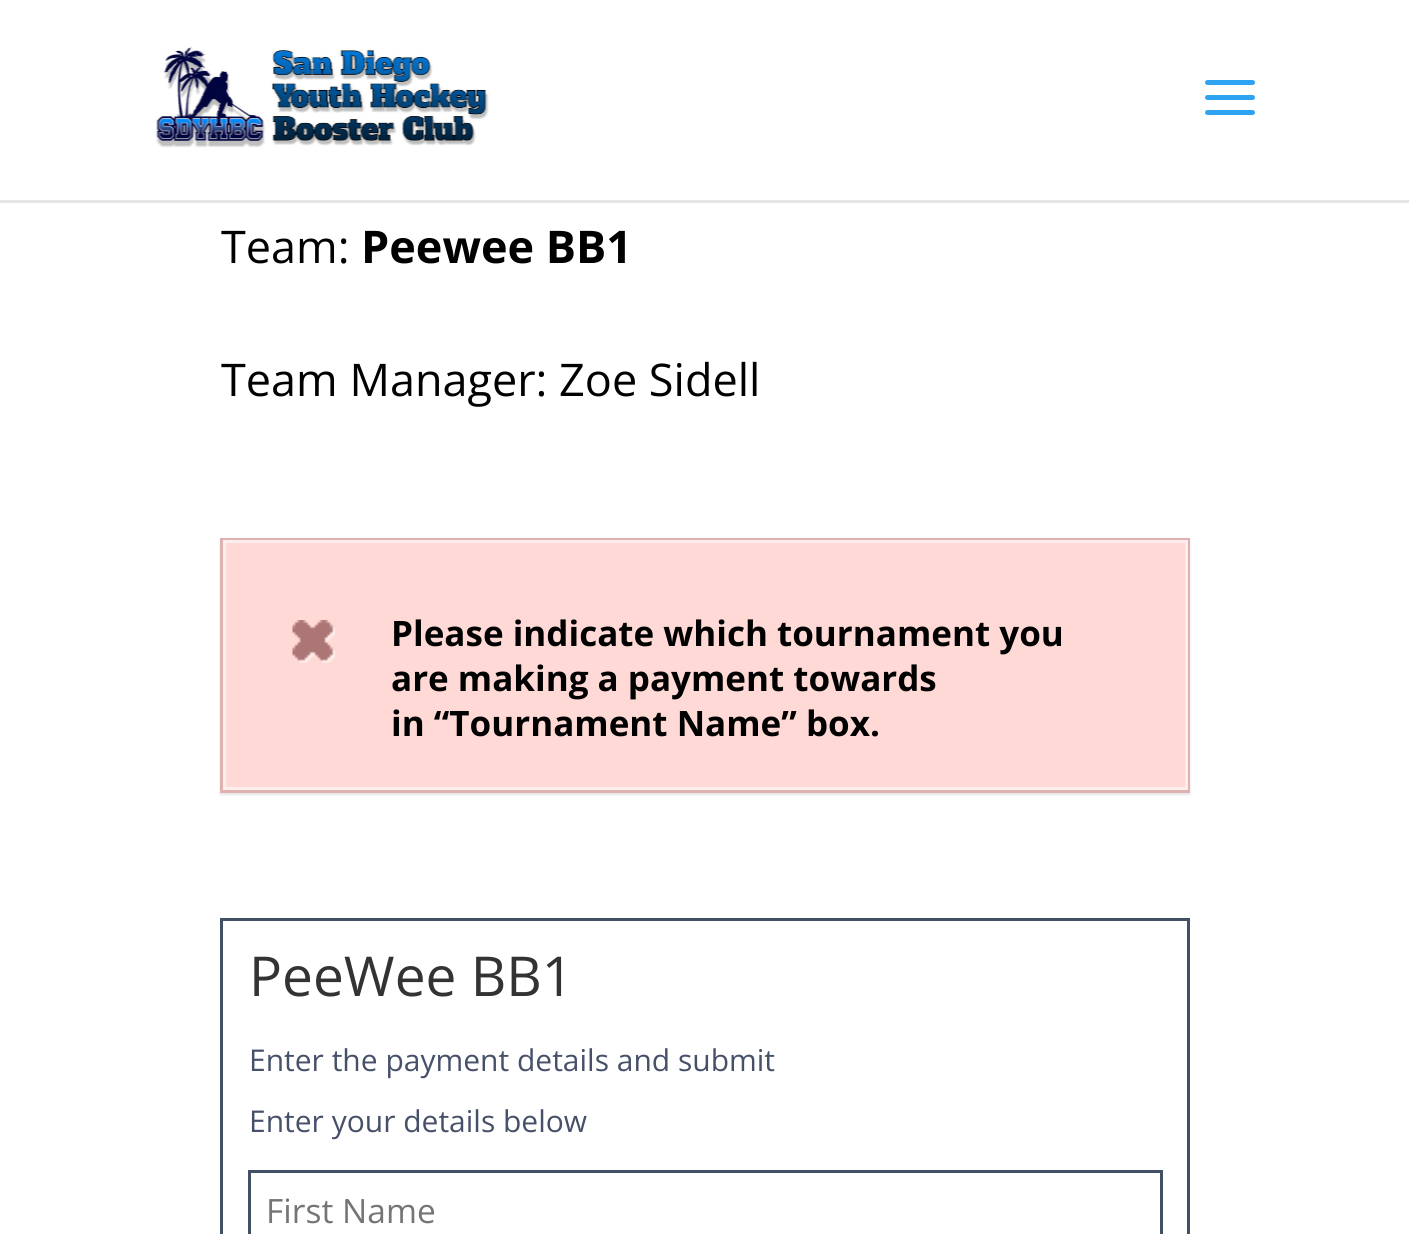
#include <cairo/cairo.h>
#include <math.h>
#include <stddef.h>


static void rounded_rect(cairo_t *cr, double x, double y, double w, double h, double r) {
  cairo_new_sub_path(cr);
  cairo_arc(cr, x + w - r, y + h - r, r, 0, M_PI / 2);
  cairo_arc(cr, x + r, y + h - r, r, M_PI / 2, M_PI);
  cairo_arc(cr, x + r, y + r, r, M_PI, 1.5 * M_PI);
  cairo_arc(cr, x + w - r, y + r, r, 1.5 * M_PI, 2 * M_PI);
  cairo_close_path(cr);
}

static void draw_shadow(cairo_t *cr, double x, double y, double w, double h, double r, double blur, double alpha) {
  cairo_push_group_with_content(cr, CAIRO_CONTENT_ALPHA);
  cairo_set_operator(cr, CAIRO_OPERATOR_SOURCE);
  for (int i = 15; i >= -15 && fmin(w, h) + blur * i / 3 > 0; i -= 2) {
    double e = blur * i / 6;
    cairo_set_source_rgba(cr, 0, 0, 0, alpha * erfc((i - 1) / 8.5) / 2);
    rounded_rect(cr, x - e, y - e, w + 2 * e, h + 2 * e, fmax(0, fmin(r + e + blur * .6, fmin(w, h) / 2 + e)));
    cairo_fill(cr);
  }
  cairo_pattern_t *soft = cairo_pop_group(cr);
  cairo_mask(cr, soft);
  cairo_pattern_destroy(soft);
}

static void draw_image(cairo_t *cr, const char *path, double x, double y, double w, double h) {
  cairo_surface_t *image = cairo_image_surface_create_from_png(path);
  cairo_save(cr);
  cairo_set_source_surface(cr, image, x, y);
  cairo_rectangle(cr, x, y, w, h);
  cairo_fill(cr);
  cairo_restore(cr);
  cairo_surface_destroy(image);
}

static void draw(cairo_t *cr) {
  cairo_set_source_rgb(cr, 1, 1, 1);
  cairo_paint(cr);
  cairo_set_source_rgb(cr, 230 / 255.0, 230 / 255.0, 230 / 255.0);
  cairo_rectangle(cr, 0, 200, 1409, 3);
  cairo_fill(cr);
  draw_image(cr, "images/1.png", 155, 45, 334, 103);
  draw_image(cr, "images/2.png", 1205, 80, 50, 35);
  cairo_set_source_rgb(cr, 0, 0, 0);
  draw_shadow(cr, 220, 540, 970, 255, 0, 1, 0.1);
  cairo_rectangle(cr, 221.5, 539.5, 967, 252);
  cairo_set_source_rgb(cr, 224 / 255.0, 177 / 255.0, 177 / 255.0);
  cairo_set_line_width(cr, 3);
  cairo_stroke(cr);
  cairo_set_source_rgb(cr, 1, 217 / 255.0, 213 / 255.0);
  cairo_rectangle(cr, 224.5, 541.5, 962, 247);
  cairo_fill_preserve(cr);
  cairo_set_source_rgb(cr, 252 / 255.0, 238 / 255.0, 236 / 255.0);
  cairo_stroke(cr);
  draw_image(cr, "images/3.png", 292, 620, 43, 43);
  cairo_rectangle(cr, 221.5, 919.5, 967, 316);
  cairo_set_source_rgb(cr, 65 / 255.0, 80 / 255.0, 99 / 255.0);
  cairo_stroke(cr);
  cairo_rectangle(cr, 249.5, 1171.5, 912, 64);
  cairo_stroke(cr);
  cairo_select_font_face(cr, "Open Sans", CAIRO_FONT_SLANT_NORMAL, CAIRO_FONT_WEIGHT_NORMAL);
  cairo_set_font_size(cr, 45);
  cairo_set_source_rgb(cr, 0, 0, 0);
  cairo_move_to(cr, 221, 263);
  cairo_show_text(cr, "Team:");
  cairo_select_font_face(cr, "Open Sans", CAIRO_FONT_SLANT_NORMAL, CAIRO_FONT_WEIGHT_BOLD);
  cairo_move_to(cr, 361, 263);
  cairo_show_text(cr, "Peewee BB1");
  cairo_select_font_face(cr, "Open Sans", CAIRO_FONT_SLANT_NORMAL, CAIRO_FONT_WEIGHT_NORMAL);
  cairo_move_to(cr, 221, 396);
  cairo_show_text(cr, "Team Manager: Zoe Sidell");
  cairo_select_font_face(cr, "Open Sans", CAIRO_FONT_SLANT_NORMAL, CAIRO_FONT_WEIGHT_BOLD);
  cairo_set_font_size(cr, 35);
  cairo_move_to(cr, 391, 646);
  cairo_show_text(cr, "Please indicate which tournament you");
  cairo_move_to(cr, 391, 691);
  cairo_show_text(cr, "are making a payment towards");
  cairo_move_to(cr, 391, 736);
  cairo_show_text(cr, "in “Tournament Name” box.");
  cairo_select_font_face(cr, "Open Sans", CAIRO_FONT_SLANT_NORMAL, CAIRO_FONT_WEIGHT_NORMAL);
  cairo_set_font_size(cr, 55);
  cairo_set_source_rgb(cr, 51 / 255.0, 51 / 255.0, 51 / 255.0);
  cairo_move_to(cr, 249, 996);
  cairo_show_text(cr, "PeeWee BB1");
  cairo_set_font_size(cr, 30);
  cairo_set_source_rgb(cr, 70 / 255.0, 80 / 255.0, 105 / 255.0);
  cairo_move_to(cr, 249, 1071);
  cairo_show_text(cr, "Enter the payment details and submit");
  cairo_move_to(cr, 249, 1132);
  cairo_show_text(cr, "Enter your details below");
  cairo_set_font_size(cr, 33.5);
  cairo_set_source_rgb(cr, 117 / 255.0, 117 / 255.0, 117 / 255.0);
  cairo_move_to(cr, 266, 1223);
  cairo_show_text(cr, "First Name");
}

int main(void) {
  cairo_surface_t *surface = cairo_image_surface_create(CAIRO_FORMAT_RGB24, 1409, 1234);
  cairo_t *cr = cairo_create(surface);
  cairo_font_options_t *options = cairo_font_options_create();
  cairo_font_options_set_hint_metrics(options, CAIRO_HINT_METRICS_OFF);
  cairo_font_options_set_hint_style(options, CAIRO_HINT_STYLE_NONE);
  cairo_set_font_options(cr, options);
  cairo_set_miter_limit(cr, 4);
  draw(cr);
  cairo_surface_write_to_png(surface, "out.png");
  cairo_font_options_destroy(options);
  cairo_destroy(cr);
  cairo_surface_destroy(surface);
  return 0;
}
